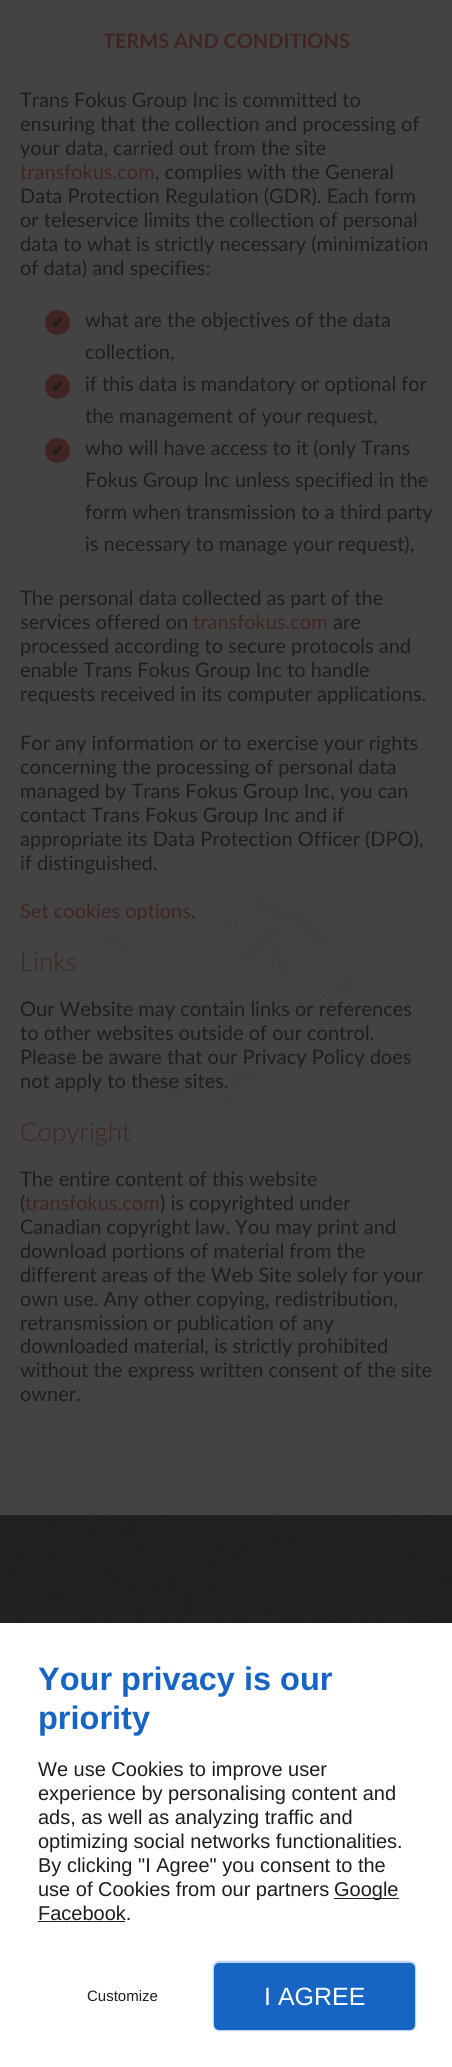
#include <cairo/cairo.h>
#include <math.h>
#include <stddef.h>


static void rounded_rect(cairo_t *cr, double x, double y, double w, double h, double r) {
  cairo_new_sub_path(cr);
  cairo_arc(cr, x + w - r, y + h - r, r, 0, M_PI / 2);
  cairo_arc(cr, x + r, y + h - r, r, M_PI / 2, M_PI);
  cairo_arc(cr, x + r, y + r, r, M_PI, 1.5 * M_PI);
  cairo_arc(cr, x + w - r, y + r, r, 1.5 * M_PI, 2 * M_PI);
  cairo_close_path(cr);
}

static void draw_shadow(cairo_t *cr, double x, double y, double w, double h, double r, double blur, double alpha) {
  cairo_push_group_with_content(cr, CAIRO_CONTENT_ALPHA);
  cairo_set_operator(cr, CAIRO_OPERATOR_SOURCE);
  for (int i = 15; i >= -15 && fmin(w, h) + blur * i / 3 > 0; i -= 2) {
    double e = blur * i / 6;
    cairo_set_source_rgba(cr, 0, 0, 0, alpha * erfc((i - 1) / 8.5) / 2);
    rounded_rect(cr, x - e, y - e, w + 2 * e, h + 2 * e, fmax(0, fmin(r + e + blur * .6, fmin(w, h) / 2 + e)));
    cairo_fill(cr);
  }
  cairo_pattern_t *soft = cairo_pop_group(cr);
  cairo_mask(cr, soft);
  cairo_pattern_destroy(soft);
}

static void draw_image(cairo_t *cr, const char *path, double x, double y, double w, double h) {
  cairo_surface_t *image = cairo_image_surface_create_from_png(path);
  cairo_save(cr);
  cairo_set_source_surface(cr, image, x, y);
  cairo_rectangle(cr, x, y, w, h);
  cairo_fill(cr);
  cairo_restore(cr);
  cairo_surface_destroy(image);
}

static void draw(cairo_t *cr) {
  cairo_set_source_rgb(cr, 67 / 255.0, 67 / 255.0, 67 / 255.0);
  cairo_paint(cr);
  draw_image(cr, "images/1.png", 44, 864, 351, 340);
  cairo_set_source_rgb(cr, 64 / 255.0, 36 / 255.0, 34 / 255.0);
  cairo_arc(cr, 57.5, 322.5, 12.5, 0, 2 * M_PI);
  cairo_fill(cr);
  cairo_arc(cr, 57.5, 386.5, 12.5, 0, 2 * M_PI);
  cairo_fill(cr);
  cairo_arc(cr, 57.5, 450.5, 12.5, 0, 2 * M_PI);
  cairo_fill(cr);
  cairo_set_source_rgb(cr, 33 / 255.0, 33 / 255.0, 33 / 255.0);
  cairo_rectangle(cr, 0, 1515, 452, 108);
  cairo_fill(cr);
  draw_image(cr, "images/2.png", 0, 1514, 452, 109);
  cairo_set_source_rgb(cr, 1, 1, 1);
  cairo_rectangle(cr, 0, 1623, 452, 444);
  cairo_fill(cr);
  cairo_set_source_rgb(cr, 34 / 255.0, 34 / 255.0, 34 / 255.0);
  cairo_rectangle(cr, 334, 1898, 65, 1);
  cairo_fill(cr);
  cairo_rectangle(cr, 38, 1921, 87, 1);
  cairo_fill(cr);
  cairo_set_source_rgb(cr, 22 / 255.0, 101 / 255.0, 196 / 255.0);
  draw_shadow(cr, 213, 1961, 203, 70, 6, 0.5, 0.3);
  cairo_set_source_rgb(cr, 22 / 255.0, 101 / 255.0, 196 / 255.0);
  rounded_rect(cr, 215.5, 1964.5, 198, 64, 3.5);
  cairo_fill_preserve(cr);
  cairo_set_line_width(cr, 3);
  cairo_stroke(cr);
  cairo_select_font_face(cr, "Lato", CAIRO_FONT_SLANT_NORMAL, CAIRO_FONT_WEIGHT_BOLD);
  cairo_set_font_size(cr, 20);
  cairo_set_source_rgb(cr, 64 / 255.0, 36 / 255.0, 34 / 255.0);
  cairo_move_to(cr, 103, 48);
  cairo_show_text(cr, "TERMS AND CONDITIONS");
  cairo_select_font_face(cr, "Lato", CAIRO_FONT_SLANT_NORMAL, CAIRO_FONT_WEIGHT_NORMAL);
  cairo_set_source_rgb(cr, 29 / 255.0, 29 / 255.0, 29 / 255.0);
  cairo_move_to(cr, 20, 107);
  cairo_show_text(cr, "Trans Fokus Group Inc is committed to");
  cairo_move_to(cr, 20, 131);
  cairo_show_text(cr, "ensuring that the collection and processing of");
  cairo_move_to(cr, 20, 155);
  cairo_show_text(cr, "your data, carried out from the site");
  cairo_set_source_rgb(cr, 64 / 255.0, 36 / 255.0, 34 / 255.0);
  cairo_move_to(cr, 20, 179);
  cairo_show_text(cr, "transfokus.com");
  cairo_set_source_rgb(cr, 29 / 255.0, 29 / 255.0, 29 / 255.0);
  cairo_move_to(cr, 155, 179);
  cairo_show_text(cr, ", complies with the General");
  cairo_move_to(cr, 20, 203);
  cairo_show_text(cr, "Data Protection Regulation (GDR). Each form");
  cairo_move_to(cr, 20, 227);
  cairo_show_text(cr, "or teleservice limits the collection of personal");
  cairo_move_to(cr, 20, 251);
  cairo_show_text(cr, "data to what is strictly necessary (minimization");
  cairo_move_to(cr, 20, 275);
  cairo_show_text(cr, "of data) and specifies:");
  cairo_select_font_face(cr, "DejaVu Sans", CAIRO_FONT_SLANT_NORMAL, CAIRO_FONT_WEIGHT_BOLD);
  cairo_set_font_size(cr, 16);
  cairo_move_to(cr, 51, 328);
  cairo_show_text(cr, "✔");
  cairo_select_font_face(cr, "Lato", CAIRO_FONT_SLANT_NORMAL, CAIRO_FONT_WEIGHT_NORMAL);
  cairo_set_font_size(cr, 20);
  cairo_move_to(cr, 85, 327);
  cairo_show_text(cr, "what are the objectives of the data");
  cairo_move_to(cr, 85, 359);
  cairo_show_text(cr, "collection,");
  cairo_select_font_face(cr, "DejaVu Sans", CAIRO_FONT_SLANT_NORMAL, CAIRO_FONT_WEIGHT_BOLD);
  cairo_set_font_size(cr, 16);
  cairo_move_to(cr, 51, 392);
  cairo_show_text(cr, "✔");
  cairo_select_font_face(cr, "Lato", CAIRO_FONT_SLANT_NORMAL, CAIRO_FONT_WEIGHT_NORMAL);
  cairo_set_font_size(cr, 20);
  cairo_move_to(cr, 85, 391);
  cairo_show_text(cr, "if this data is mandatory or optional for");
  cairo_move_to(cr, 85, 423);
  cairo_show_text(cr, "the management of your request,");
  cairo_select_font_face(cr, "DejaVu Sans", CAIRO_FONT_SLANT_NORMAL, CAIRO_FONT_WEIGHT_BOLD);
  cairo_set_font_size(cr, 16);
  cairo_move_to(cr, 51, 456);
  cairo_show_text(cr, "✔");
  cairo_select_font_face(cr, "Lato", CAIRO_FONT_SLANT_NORMAL, CAIRO_FONT_WEIGHT_NORMAL);
  cairo_set_font_size(cr, 20);
  cairo_move_to(cr, 85, 455);
  cairo_show_text(cr, "who will have access to it (only Trans");
  cairo_move_to(cr, 85, 487);
  cairo_show_text(cr, "Fokus Group Inc unless specified in the");
  cairo_move_to(cr, 85, 519);
  cairo_show_text(cr, "form when transmission to a third party");
  cairo_move_to(cr, 85, 551);
  cairo_show_text(cr, "is necessary to manage your request),");
  cairo_move_to(cr, 20, 605);
  cairo_show_text(cr, "The personal data collected as part of the");
  cairo_move_to(cr, 20, 629);
  cairo_show_text(cr, "services offered on");
  cairo_set_source_rgb(cr, 64 / 255.0, 36 / 255.0, 34 / 255.0);
  cairo_move_to(cr, 193, 629);
  cairo_show_text(cr, "transfokus.com");
  cairo_set_source_rgb(cr, 29 / 255.0, 29 / 255.0, 29 / 255.0);
  cairo_move_to(cr, 333, 629);
  cairo_show_text(cr, "are");
  cairo_move_to(cr, 20, 653);
  cairo_show_text(cr, "processed according to secure protocols and");
  cairo_move_to(cr, 20, 677);
  cairo_show_text(cr, "enable Trans Fokus Group Inc to handle");
  cairo_move_to(cr, 20, 701);
  cairo_show_text(cr, "requests received in its computer applications.");
  cairo_move_to(cr, 20, 750);
  cairo_show_text(cr, "For any information or to exercise your rights");
  cairo_move_to(cr, 20, 774);
  cairo_show_text(cr, "concerning the processing of personal data");
  cairo_move_to(cr, 20, 798);
  cairo_show_text(cr, "managed by Trans Fokus Group Inc, you can");
  cairo_move_to(cr, 20, 822);
  cairo_show_text(cr, "contact Trans Fokus Group Inc and if");
  cairo_move_to(cr, 20, 846);
  cairo_show_text(cr, "appropriate its Data Protection Officer (DPO),");
  cairo_move_to(cr, 20, 870);
  cairo_show_text(cr, "if distinguished.");
  cairo_set_source_rgb(cr, 64 / 255.0, 36 / 255.0, 34 / 255.0);
  cairo_move_to(cr, 20, 918);
  cairo_show_text(cr, "Set cookies options");
  cairo_set_source_rgb(cr, 29 / 255.0, 29 / 255.0, 29 / 255.0);
  cairo_move_to(cr, 191, 918);
  cairo_show_text(cr, ".");
  cairo_select_font_face(cr, "Lato Light", CAIRO_FONT_SLANT_NORMAL, CAIRO_FONT_WEIGHT_NORMAL);
  cairo_set_font_size(cr, 26);
  cairo_set_source_rgb(cr, 64 / 255.0, 36 / 255.0, 34 / 255.0);
  cairo_move_to(cr, 20, 971);
  cairo_show_text(cr, "Links");
  cairo_select_font_face(cr, "Lato", CAIRO_FONT_SLANT_NORMAL, CAIRO_FONT_WEIGHT_NORMAL);
  cairo_set_font_size(cr, 20);
  cairo_set_source_rgb(cr, 29 / 255.0, 29 / 255.0, 29 / 255.0);
  cairo_move_to(cr, 20, 1016);
  cairo_show_text(cr, "Our Website may contain links or references");
  cairo_move_to(cr, 20, 1040);
  cairo_show_text(cr, "to other websites outside of our control.");
  cairo_move_to(cr, 20, 1064);
  cairo_show_text(cr, "Please be aware that our Privacy Policy does");
  cairo_move_to(cr, 20, 1088);
  cairo_show_text(cr, "not apply to these sites.");
  cairo_select_font_face(cr, "Lato Light", CAIRO_FONT_SLANT_NORMAL, CAIRO_FONT_WEIGHT_NORMAL);
  cairo_set_font_size(cr, 26);
  cairo_set_source_rgb(cr, 64 / 255.0, 36 / 255.0, 34 / 255.0);
  cairo_move_to(cr, 20, 1141);
  cairo_show_text(cr, "Copyright");
  cairo_select_font_face(cr, "Lato", CAIRO_FONT_SLANT_NORMAL, CAIRO_FONT_WEIGHT_NORMAL);
  cairo_set_font_size(cr, 20);
  cairo_set_source_rgb(cr, 29 / 255.0, 29 / 255.0, 29 / 255.0);
  cairo_move_to(cr, 20, 1186);
  cairo_show_text(cr, "The entire content of this website");
  cairo_move_to(cr, 20, 1210);
  cairo_show_text(cr, "(");
  cairo_set_source_rgb(cr, 64 / 255.0, 36 / 255.0, 34 / 255.0);
  cairo_move_to(cr, 25, 1210);
  cairo_show_text(cr, "transfokus.com");
  cairo_set_source_rgb(cr, 29 / 255.0, 29 / 255.0, 29 / 255.0);
  cairo_move_to(cr, 160, 1210);
  cairo_show_text(cr, ") is copyrighted under");
  cairo_move_to(cr, 20, 1234);
  cairo_show_text(cr, "Canadian copyright law. You may print and");
  cairo_move_to(cr, 20, 1258);
  cairo_show_text(cr, "download portions of material from the");
  cairo_move_to(cr, 20, 1282);
  cairo_show_text(cr, "different areas of the Web Site solely for your");
  cairo_move_to(cr, 20, 1306);
  cairo_show_text(cr, "own use. Any other copying, redistribution,");
  cairo_move_to(cr, 20, 1330);
  cairo_show_text(cr, "retransmission or publication of any");
  cairo_move_to(cr, 20, 1353);
  cairo_show_text(cr, "downloaded material, is strictly prohibited");
  cairo_move_to(cr, 20, 1377);
  cairo_show_text(cr, "without the express written consent of the site");
  cairo_move_to(cr, 20, 1401);
  cairo_show_text(cr, "owner.");
  cairo_select_font_face(cr, "Liberation Sans", CAIRO_FONT_SLANT_NORMAL, CAIRO_FONT_WEIGHT_BOLD);
  cairo_set_font_size(cr, 32.5);
  cairo_set_source_rgb(cr, 22 / 255.0, 101 / 255.0, 196 / 255.0);
  cairo_move_to(cr, 38, 1690);
  cairo_show_text(cr, "Your privacy is our");
  cairo_move_to(cr, 38, 1729);
  cairo_show_text(cr, "priority");
  cairo_select_font_face(cr, "Liberation Sans", CAIRO_FONT_SLANT_NORMAL, CAIRO_FONT_WEIGHT_NORMAL);
  cairo_set_font_size(cr, 20);
  cairo_set_source_rgb(cr, 29 / 255.0, 29 / 255.0, 29 / 255.0);
  cairo_move_to(cr, 38, 1776);
  cairo_show_text(cr, "We use Cookies to improve user");
  cairo_move_to(cr, 38, 1800);
  cairo_show_text(cr, "experience by personalising content and");
  cairo_move_to(cr, 38, 1824);
  cairo_show_text(cr, "ads, as well as analyzing traffic and");
  cairo_move_to(cr, 38, 1848);
  cairo_show_text(cr, "optimizing social networks functionalities.");
  cairo_move_to(cr, 38, 1872);
  cairo_show_text(cr, "By clicking \"I Agree\" you consent to the");
  cairo_move_to(cr, 38, 1896);
  cairo_show_text(cr, "use of Cookies from our partners");
  cairo_move_to(cr, 334, 1896);
  cairo_show_text(cr, "Google");
  cairo_move_to(cr, 38, 1920);
  cairo_show_text(cr, "Facebook.");
  cairo_set_font_size(cr, 15);
  cairo_move_to(cr, 87, 2001);
  cairo_show_text(cr, "Customize");
  cairo_set_font_size(cr, 25);
  cairo_set_source_rgb(cr, 1, 1, 1);
  cairo_move_to(cr, 264, 2005);
  cairo_show_text(cr, "I AGREE");
}

int main(void) {
  cairo_surface_t *surface = cairo_image_surface_create(CAIRO_FORMAT_RGB24, 452, 2067);
  cairo_t *cr = cairo_create(surface);
  cairo_font_options_t *options = cairo_font_options_create();
  cairo_font_options_set_hint_metrics(options, CAIRO_HINT_METRICS_OFF);
  cairo_font_options_set_hint_style(options, CAIRO_HINT_STYLE_NONE);
  cairo_set_font_options(cr, options);
  cairo_set_miter_limit(cr, 4);
  draw(cr);
  cairo_surface_write_to_png(surface, "out.png");
  cairo_font_options_destroy(options);
  cairo_destroy(cr);
  cairo_surface_destroy(surface);
  return 0;
}
